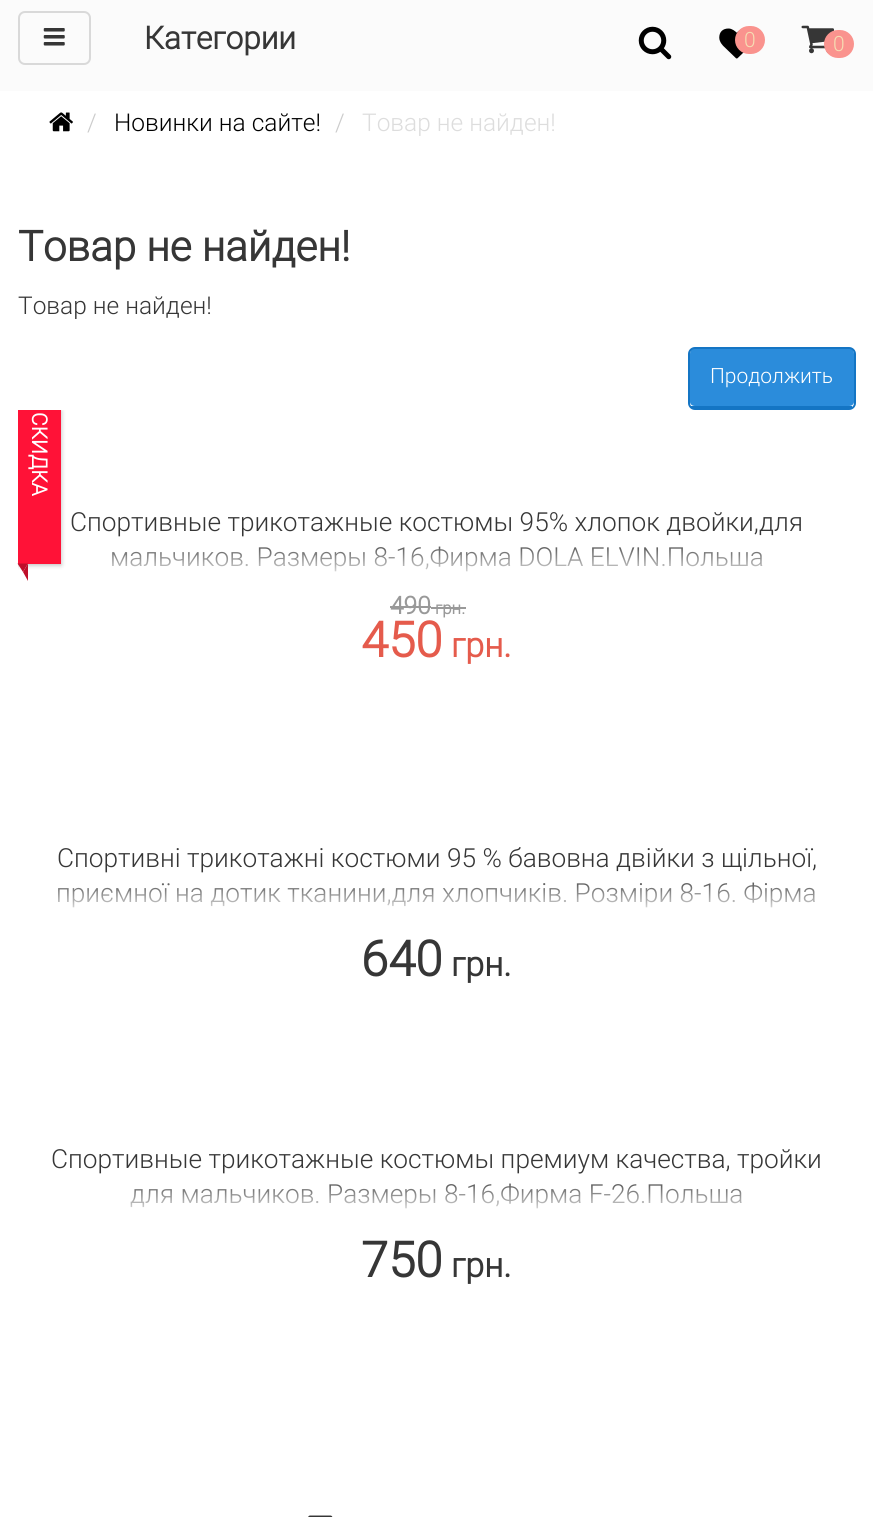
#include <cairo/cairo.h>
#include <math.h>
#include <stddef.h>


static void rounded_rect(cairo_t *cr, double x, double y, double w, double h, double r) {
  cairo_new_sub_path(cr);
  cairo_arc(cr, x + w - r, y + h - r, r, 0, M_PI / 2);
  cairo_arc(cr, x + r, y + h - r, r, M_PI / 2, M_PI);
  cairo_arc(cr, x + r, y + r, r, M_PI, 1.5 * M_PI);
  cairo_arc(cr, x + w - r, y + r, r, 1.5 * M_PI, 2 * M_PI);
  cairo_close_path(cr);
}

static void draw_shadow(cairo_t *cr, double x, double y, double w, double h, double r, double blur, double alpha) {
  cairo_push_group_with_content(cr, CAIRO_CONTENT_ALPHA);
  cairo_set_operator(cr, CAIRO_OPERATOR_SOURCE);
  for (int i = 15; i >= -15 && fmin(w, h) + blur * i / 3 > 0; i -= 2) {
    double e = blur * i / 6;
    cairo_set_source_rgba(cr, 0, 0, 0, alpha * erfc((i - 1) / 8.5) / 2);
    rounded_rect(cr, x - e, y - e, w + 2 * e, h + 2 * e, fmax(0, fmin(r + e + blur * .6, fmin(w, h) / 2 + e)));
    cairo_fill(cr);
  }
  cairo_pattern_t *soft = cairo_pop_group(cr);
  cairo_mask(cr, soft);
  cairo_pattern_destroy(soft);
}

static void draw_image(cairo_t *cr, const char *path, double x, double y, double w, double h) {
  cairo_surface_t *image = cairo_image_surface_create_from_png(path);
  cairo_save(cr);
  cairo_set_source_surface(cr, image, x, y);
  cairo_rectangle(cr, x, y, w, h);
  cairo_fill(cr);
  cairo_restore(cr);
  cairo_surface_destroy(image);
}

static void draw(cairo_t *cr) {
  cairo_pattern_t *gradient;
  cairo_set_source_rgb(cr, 1, 1, 1);
  cairo_paint(cr);
  cairo_set_source_rgb(cr, 251 / 255.0, 251 / 255.0, 251 / 255.0);
  cairo_rectangle(cr, 0, 0, 873, 91);
  cairo_fill(cr);
  rounded_rect(cr, 19, 12, 71, 52, 6);
  cairo_set_source_rgb(cr, 217 / 255.0, 217 / 255.0, 217 / 255.0);
  cairo_stroke(cr);
  draw_image(cr, "images/1.png", 43, 28, 22, 18);
  draw_image(cr, "images/2.png", 638, 26, 34, 34);
  draw_image(cr, "images/3.png", 719, 28, 25, 31);
  cairo_set_source_rgb(cr, 250 / 255.0, 147 / 255.0, 142 / 255.0);
  rounded_rect(cr, 735, 26, 30, 28, 14);
  cairo_fill(cr);
  draw_image(cr, "images/4.png", 801, 25, 33, 29);
  rounded_rect(cr, 824, 30, 30, 28, 14);
  cairo_fill(cr);
  draw_image(cr, "images/5.png", 49, 112, 24, 20);
  cairo_set_source_rgb(cr, 43 / 255.0, 140 / 255.0, 219 / 255.0);
  cairo_new_path(cr);
  cairo_move_to(cr, 695, 348);
  cairo_line_to(cr, 849, 348);
  cairo_curve_to(cr, 852, 348, 854, 351, 854, 354);
  cairo_line_to(cr, 854, 402);
  cairo_curve_to(cr, 854, 404, 852, 406, 849, 406);
  cairo_line_to(cr, 695, 406);
  cairo_curve_to(cr, 692, 406, 690, 404, 690, 402);
  cairo_line_to(cr, 690, 354);
  cairo_curve_to(cr, 690, 351, 692, 348, 695, 348);
  cairo_close_path(cr);
  cairo_fill(cr);
  rounded_rect(cr, 689, 348, 166, 61, 6);
  cairo_set_source_rgb(cr, 20 / 255.0, 117 / 255.0, 196 / 255.0);
  cairo_stroke(cr);
  cairo_rectangle(cr, 691, 406, 161, 2);
  cairo_fill(cr);
  cairo_save(cr);
  cairo_rectangle(cr, 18, 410, 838, 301);
  cairo_clip(cr);
  cairo_set_source_rgb(cr, 13 / 255.0, 13 / 255.0, 13 / 255.0);
  draw_shadow(cr, 18, 411, 43, 154, 0, 2.5, 0.3);
  cairo_restore(cr);
  cairo_set_source_rgb(cr, 1, 18 / 255.0, 55 / 255.0);
  cairo_rectangle(cr, 18, 410, 43, 154);
  cairo_fill(cr);
  cairo_set_source_rgb(cr, 191 / 255.0, 15 / 255.0, 42 / 255.0);
  cairo_new_path(cr);
  cairo_move_to(cr, 17.5, 563.5);
  cairo_line_to(cr, 28, 563.5);
  cairo_line_to(cr, 23, 572);
  cairo_close_path(cr);
  cairo_fill(cr);
  cairo_new_path(cr);
  cairo_move_to(cr, 28, 563.5);
  cairo_line_to(cr, 28, 581);
  cairo_line_to(cr, 23, 572);
  cairo_close_path(cr);
  cairo_fill(cr);
  cairo_set_source_rgb(cr, 153 / 255.0, 153 / 255.0, 153 / 255.0);
  cairo_rectangle(cr, 390, 606, 41, 2);
  cairo_fill(cr);
  cairo_rectangle(cr, 431, 607, 35, 2);
  cairo_fill(cr);
  draw_image(cr, "images/6.png", 308, 1515, 25, 2);
  cairo_select_font_face(cr, "Roboto", CAIRO_FONT_SLANT_NORMAL, CAIRO_FONT_WEIGHT_BOLD);
  cairo_set_font_size(cr, 31.5);
  cairo_set_source_rgb(cr, 54 / 255.0, 54 / 255.0, 54 / 255.0);
  cairo_move_to(cr, 144, 49);
  cairo_show_text(cr, "Категории");
  cairo_select_font_face(cr, "Roboto Light", CAIRO_FONT_SLANT_NORMAL, CAIRO_FONT_WEIGHT_NORMAL);
  cairo_set_font_size(cr, 21);
  cairo_set_source_rgb(cr, 245 / 255.0, 222 / 255.0, 179 / 255.0);
  cairo_move_to(cr, 744, 47);
  cairo_show_text(cr, "0");
  cairo_move_to(cr, 833, 51);
  cairo_show_text(cr, "0");
  cairo_set_font_size(cr, 24.5);
  cairo_set_source_rgb(cr, 204 / 255.0, 204 / 255.0, 204 / 255.0);
  cairo_move_to(cr, 87, 131);
  cairo_show_text(cr, "/");
  cairo_set_source_rgb(cr, 0, 0, 0);
  cairo_move_to(cr, 114, 131);
  cairo_show_text(cr, "Новинки на сайте!");
  cairo_set_source_rgb(cr, 204 / 255.0, 204 / 255.0, 204 / 255.0);
  cairo_move_to(cr, 335, 131);
  cairo_show_text(cr, "/");
  cairo_set_source_rgb(cr, 221 / 255.0, 221 / 255.0, 221 / 255.0);
  cairo_move_to(cr, 362, 131);
  cairo_show_text(cr, "Товар не найден!");
  cairo_select_font_face(cr, "Roboto", CAIRO_FONT_SLANT_NORMAL, CAIRO_FONT_WEIGHT_BOLD);
  cairo_set_font_size(cr, 42);
  cairo_set_source_rgb(cr, 54 / 255.0, 54 / 255.0, 54 / 255.0);
  cairo_move_to(cr, 18, 261);
  cairo_show_text(cr, "Товар не найден!");
  cairo_select_font_face(cr, "Roboto Light", CAIRO_FONT_SLANT_NORMAL, CAIRO_FONT_WEIGHT_NORMAL);
  cairo_set_font_size(cr, 24.5);
  cairo_move_to(cr, 18, 314);
  cairo_show_text(cr, "Товар не найден!");
  cairo_set_font_size(cr, 21);
  cairo_set_source_rgb(cr, 1, 1, 1);
  cairo_move_to(cr, 710, 383);
  cairo_show_text(cr, "Продолжить");
  cairo_select_font_face(cr, "Roboto", CAIRO_FONT_SLANT_NORMAL, CAIRO_FONT_WEIGHT_BOLD);
  cairo_save(cr);
  cairo_translate(cr, 32, 412);
  cairo_rotate(cr, 90 * M_PI / 180);
  cairo_move_to(cr, 0, 0);
  cairo_show_text(cr, "СКИДКА");
  cairo_restore(cr);
  cairo_select_font_face(cr, "Roboto Light", CAIRO_FONT_SLANT_NORMAL, CAIRO_FONT_WEIGHT_NORMAL);
  cairo_set_font_size(cr, 26.25);
  cairo_set_source_rgb(cr, 54 / 255.0, 54 / 255.0, 54 / 255.0);
  cairo_move_to(cr, 70, 531);
  cairo_show_text(cr, "Cпортивные трикотажные костюмы 95% хлопок двойки,для");
  cairo_move_to(cr, 110, 566);
  cairo_show_text(cr, "мальчиков. Размеры 8-16,Фирма DOLA ELVIN.Польша");
  gradient = cairo_pattern_create_linear(437, 539, 437, 581);
  cairo_pattern_add_color_stop_rgba(gradient, 0, 1, 1, 1, 0);
  cairo_pattern_add_color_stop_rgba(gradient, 1, 1, 1, 1, 1);
  cairo_set_source(cr, gradient);
  cairo_pattern_destroy(gradient);
  cairo_rectangle(cr, 111, 546, 651, 26);
  cairo_fill(cr);
  cairo_select_font_face(cr, "Roboto", CAIRO_FONT_SLANT_NORMAL, CAIRO_FONT_WEIGHT_BOLD);
  cairo_set_font_size(cr, 24.5);
  cairo_set_source_rgb(cr, 153 / 255.0, 153 / 255.0, 153 / 255.0);
  cairo_move_to(cr, 390, 614);
  cairo_show_text(cr, "490");
  cairo_set_font_size(cr, 17);
  cairo_move_to(cr, 435, 614);
  cairo_show_text(cr, "грн.");
  cairo_set_font_size(cr, 49);
  cairo_set_source_rgb(cr, 229 / 255.0, 91 / 255.0, 76 / 255.0);
  cairo_move_to(cr, 361, 657);
  cairo_show_text(cr, "450");
  cairo_set_font_size(cr, 34);
  cairo_move_to(cr, 451, 657);
  cairo_show_text(cr, "грн.");
  cairo_select_font_face(cr, "Roboto Light", CAIRO_FONT_SLANT_NORMAL, CAIRO_FONT_WEIGHT_NORMAL);
  cairo_set_font_size(cr, 26.25);
  cairo_set_source_rgb(cr, 54 / 255.0, 54 / 255.0, 54 / 255.0);
  cairo_move_to(cr, 57, 867);
  cairo_show_text(cr, "Cпортивні трикотажні костюми 95 % бавовна двійки з щільної,");
  cairo_move_to(cr, 56, 902);
  cairo_show_text(cr, "приємної на дотик тканини,для хлопчиків. Розміри 8-16. Фірма");
  gradient = cairo_pattern_create_linear(437, 875, 437, 917);
  cairo_pattern_add_color_stop_rgba(gradient, 0, 1, 1, 1, 0);
  cairo_pattern_add_color_stop_rgba(gradient, 1, 1, 1, 1, 1);
  cairo_set_source(cr, gradient);
  cairo_pattern_destroy(gradient);
  cairo_rectangle(cr, 58, 882, 758, 26);
  cairo_fill(cr);
  cairo_select_font_face(cr, "Roboto", CAIRO_FONT_SLANT_NORMAL, CAIRO_FONT_WEIGHT_BOLD);
  cairo_set_font_size(cr, 49);
  cairo_set_source_rgb(cr, 54 / 255.0, 54 / 255.0, 54 / 255.0);
  cairo_move_to(cr, 361, 976);
  cairo_show_text(cr, "640");
  cairo_set_font_size(cr, 34);
  cairo_move_to(cr, 451, 976);
  cairo_show_text(cr, "грн.");
  cairo_select_font_face(cr, "Roboto Light", CAIRO_FONT_SLANT_NORMAL, CAIRO_FONT_WEIGHT_NORMAL);
  cairo_set_font_size(cr, 26.25);
  cairo_move_to(cr, 51, 1168);
  cairo_show_text(cr, "Cпортивные трикотажные костюмы премиум качества, тройки");
  cairo_move_to(cr, 130, 1203);
  cairo_show_text(cr, "для мальчиков. Размеры 8-16,Фирма F-26.Польша");
  gradient = cairo_pattern_create_linear(437, 1176, 437, 1218);
  cairo_pattern_add_color_stop_rgba(gradient, 0, 1, 1, 1, 0);
  cairo_pattern_add_color_stop_rgba(gradient, 1, 1, 1, 1, 1);
  cairo_set_source(cr, gradient);
  cairo_pattern_destroy(gradient);
  cairo_rectangle(cr, 130, 1183, 612, 26);
  cairo_fill(cr);
  cairo_select_font_face(cr, "Roboto", CAIRO_FONT_SLANT_NORMAL, CAIRO_FONT_WEIGHT_BOLD);
  cairo_set_font_size(cr, 49);
  cairo_set_source_rgb(cr, 54 / 255.0, 54 / 255.0, 54 / 255.0);
  cairo_move_to(cr, 361, 1277);
  cairo_show_text(cr, "750");
  cairo_set_font_size(cr, 34);
  cairo_move_to(cr, 451, 1277);
  cairo_show_text(cr, "грн.");
}

int main(void) {
  cairo_surface_t *surface = cairo_image_surface_create(CAIRO_FORMAT_RGB24, 873, 1517);
  cairo_t *cr = cairo_create(surface);
  cairo_font_options_t *options = cairo_font_options_create();
  cairo_font_options_set_hint_metrics(options, CAIRO_HINT_METRICS_OFF);
  cairo_font_options_set_hint_style(options, CAIRO_HINT_STYLE_NONE);
  cairo_set_font_options(cr, options);
  cairo_set_miter_limit(cr, 4);
  draw(cr);
  cairo_surface_write_to_png(surface, "out.png");
  cairo_font_options_destroy(options);
  cairo_destroy(cr);
  cairo_surface_destroy(surface);
  return 0;
}
